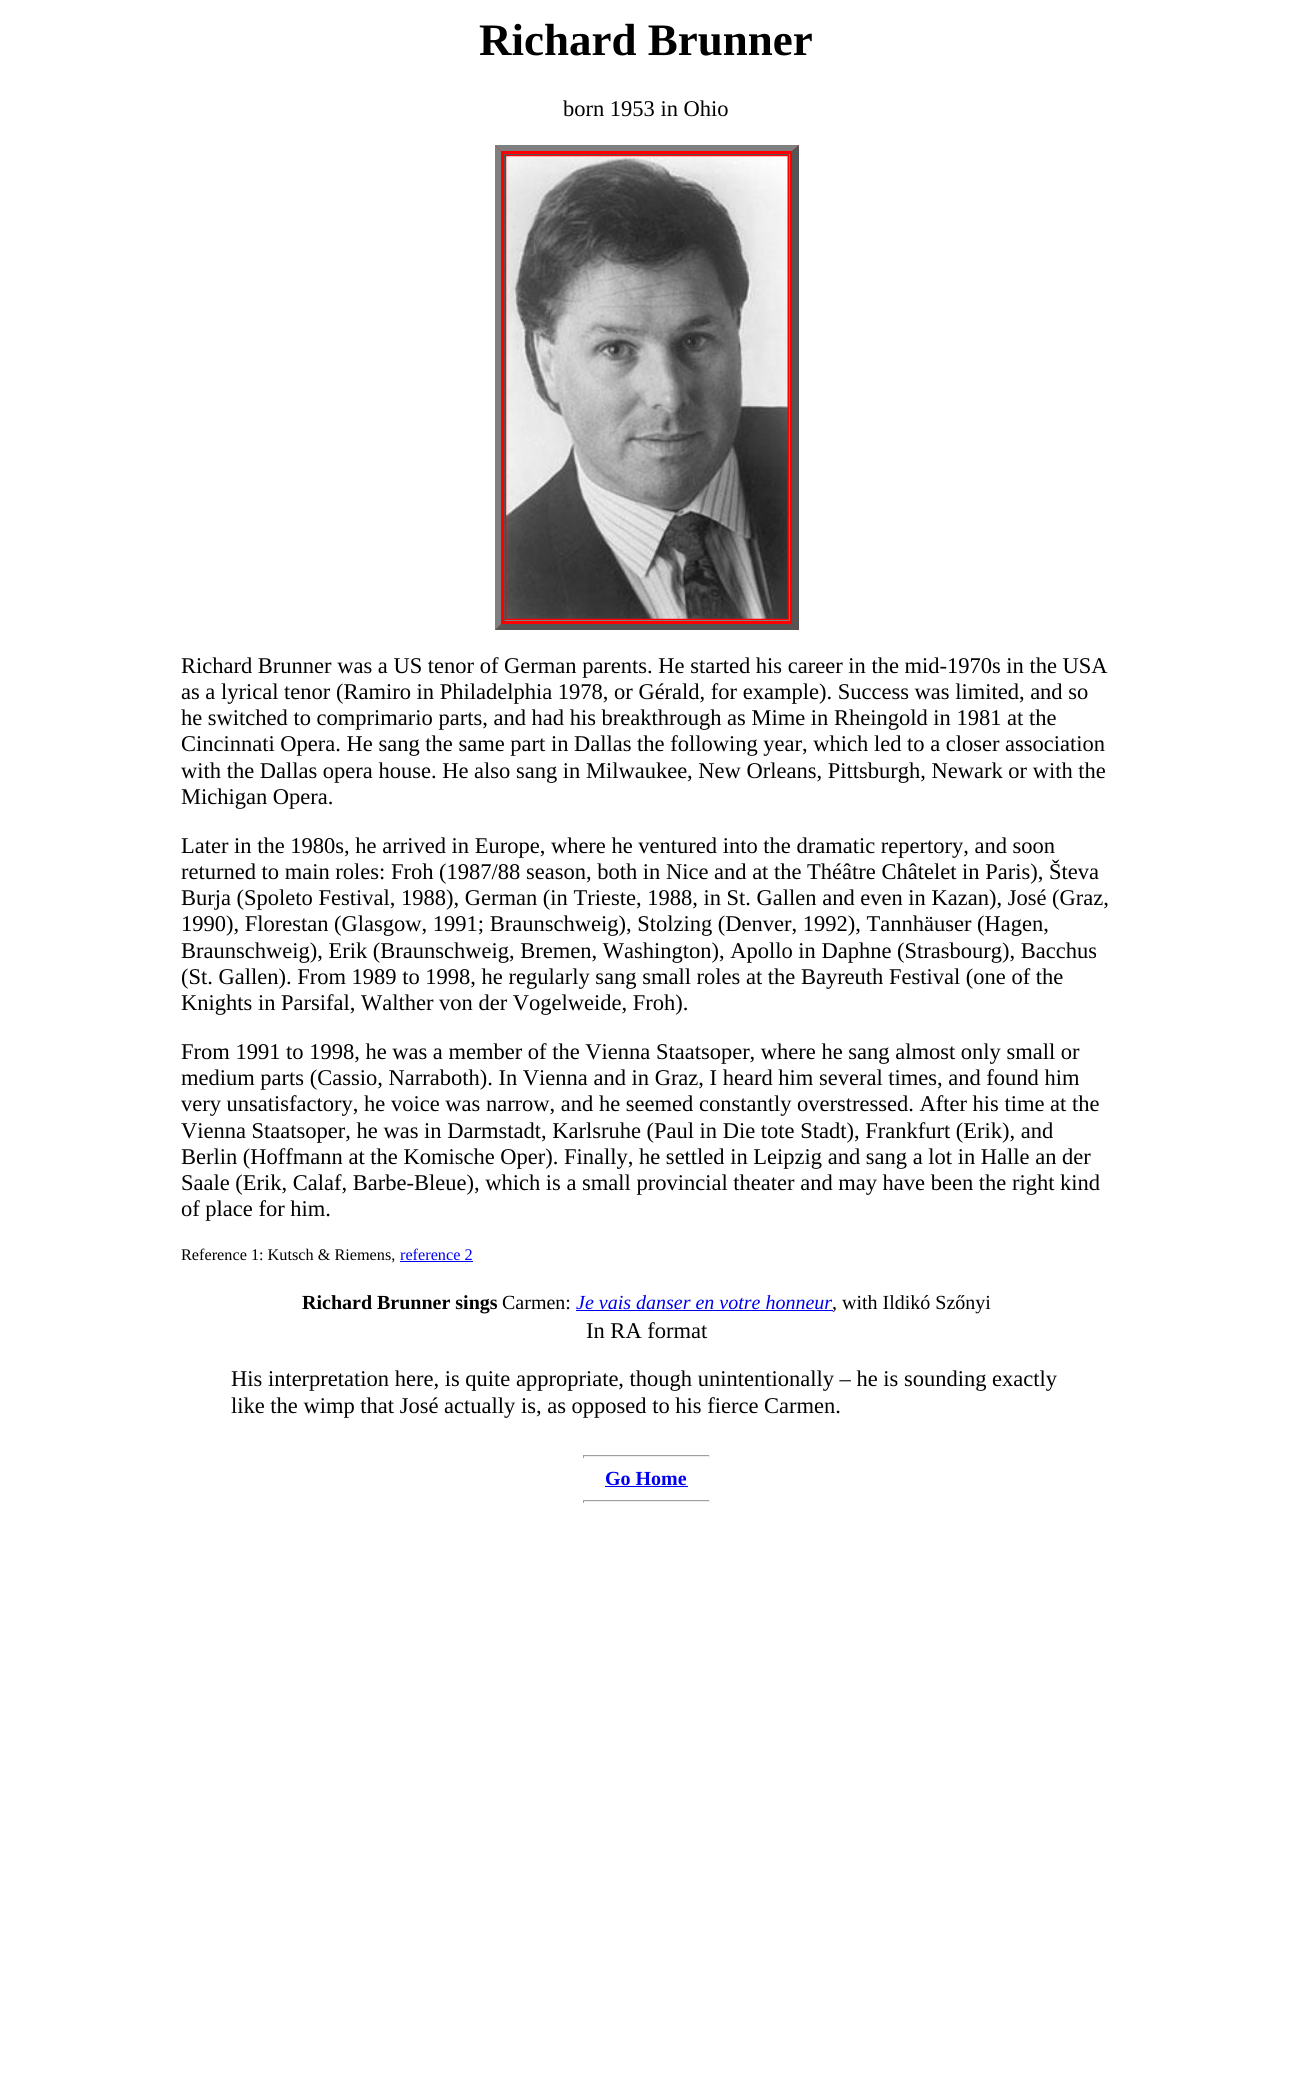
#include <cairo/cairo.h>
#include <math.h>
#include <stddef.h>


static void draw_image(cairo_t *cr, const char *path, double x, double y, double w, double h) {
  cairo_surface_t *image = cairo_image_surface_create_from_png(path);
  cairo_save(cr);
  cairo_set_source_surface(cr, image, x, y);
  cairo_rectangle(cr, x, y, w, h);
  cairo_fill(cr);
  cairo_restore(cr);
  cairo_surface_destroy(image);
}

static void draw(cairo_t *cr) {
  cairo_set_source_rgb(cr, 1, 1, 1);
  cairo_paint(cr);
  cairo_set_source_rgb(cr, 1, 0, 0);
  cairo_rectangle(cr, 495, 145, 304, 485);
  cairo_fill(cr);
  cairo_set_source_rgb(cr, 128 / 255.0, 128 / 255.0, 128 / 255.0);
  cairo_new_path(cr);
  cairo_move_to(cr, 495, 145);
  cairo_line_to(cr, 799, 145);
  cairo_line_to(cr, 792, 151);
  cairo_line_to(cr, 501, 151);
  cairo_close_path(cr);
  cairo_fill(cr);
  cairo_set_source_rgb(cr, 85 / 255.0, 85 / 255.0, 85 / 255.0);
  cairo_new_path(cr);
  cairo_move_to(cr, 799, 145);
  cairo_line_to(cr, 799, 630);
  cairo_line_to(cr, 792, 624);
  cairo_line_to(cr, 792, 151);
  cairo_close_path(cr);
  cairo_fill(cr);
  cairo_new_path(cr);
  cairo_move_to(cr, 799, 630);
  cairo_line_to(cr, 495, 630);
  cairo_line_to(cr, 501, 624);
  cairo_line_to(cr, 792, 624);
  cairo_close_path(cr);
  cairo_fill(cr);
  cairo_set_source_rgb(cr, 128 / 255.0, 128 / 255.0, 128 / 255.0);
  cairo_new_path(cr);
  cairo_move_to(cr, 495, 630);
  cairo_line_to(cr, 495, 145);
  cairo_line_to(cr, 501, 151);
  cairo_line_to(cr, 501, 624);
  cairo_close_path(cr);
  cairo_fill(cr);
  cairo_set_source_rgb(cr, 85 / 255.0, 85 / 255.0, 85 / 255.0);
  cairo_rectangle(cr, 504, 154, 286, 1);
  cairo_fill(cr);
  cairo_set_source_rgb(cr, 128 / 255.0, 128 / 255.0, 128 / 255.0);
  cairo_rectangle(cr, 789, 154, 1, 467);
  cairo_fill(cr);
  cairo_rectangle(cr, 504, 620, 286, 1);
  cairo_fill(cr);
  cairo_set_source_rgb(cr, 85 / 255.0, 85 / 255.0, 85 / 255.0);
  cairo_rectangle(cr, 504, 154, 1, 467);
  cairo_fill(cr);
  draw_image(cr, "images/1.png", 506, 156, 282, 463);
  cairo_set_source_rgb(cr, 0, 0, 238 / 255.0);
  cairo_rectangle(cr, 400, 1261, 73, 1);
  cairo_fill(cr);
  cairo_rectangle(cr, 576, 1310, 257, 1);
  cairo_fill(cr);
  cairo_set_source_rgb(cr, 159 / 255.0, 159 / 255.0, 159 / 255.0);
  cairo_rectangle(cr, 583, 1455, 127, 1);
  cairo_fill(cr);
  cairo_set_source_rgb(cr, 238 / 255.0, 238 / 255.0, 238 / 255.0);
  cairo_rectangle(cr, 709, 1455, 1, 3);
  cairo_fill(cr);
  cairo_rectangle(cr, 583, 1456, 127, 1);
  cairo_fill(cr);
  cairo_set_source_rgb(cr, 159 / 255.0, 159 / 255.0, 159 / 255.0);
  cairo_rectangle(cr, 583, 1455, 1, 3);
  cairo_fill(cr);
  cairo_set_source_rgb(cr, 0, 0, 238 / 255.0);
  cairo_rectangle(cr, 605, 1486, 83, 1);
  cairo_fill(cr);
  cairo_set_source_rgb(cr, 159 / 255.0, 159 / 255.0, 159 / 255.0);
  cairo_rectangle(cr, 583, 1500, 127, 1);
  cairo_fill(cr);
  cairo_set_source_rgb(cr, 238 / 255.0, 238 / 255.0, 238 / 255.0);
  cairo_rectangle(cr, 709, 1500, 1, 3);
  cairo_fill(cr);
  cairo_rectangle(cr, 583, 1501, 127, 1);
  cairo_fill(cr);
  cairo_set_source_rgb(cr, 159 / 255.0, 159 / 255.0, 159 / 255.0);
  cairo_rectangle(cr, 583, 1500, 1, 3);
  cairo_fill(cr);
  cairo_select_font_face(cr, "Liberation Serif", CAIRO_FONT_SLANT_NORMAL, CAIRO_FONT_WEIGHT_BOLD);
  cairo_set_font_size(cr, 45);
  cairo_set_source_rgb(cr, 0, 0, 0);
  cairo_move_to(cr, 479, 55);
  cairo_show_text(cr, "Richard Brunner");
  cairo_select_font_face(cr, "Liberation Serif", CAIRO_FONT_SLANT_NORMAL, CAIRO_FONT_WEIGHT_NORMAL);
  cairo_set_font_size(cr, 22.5);
  cairo_move_to(cr, 563, 116);
  cairo_show_text(cr, "born 1953 in Ohio");
  cairo_move_to(cr, 181, 673);
  cairo_show_text(cr, "Richard Brunner was a US tenor of German parents. He started his career in the mid-1970s in the USA");
  cairo_move_to(cr, 181, 699);
  cairo_show_text(cr, "as a lyrical tenor (Ramiro in Philadelphia 1978, or Gérald, for example). Success was limited, and so");
  cairo_move_to(cr, 181, 725);
  cairo_show_text(cr, "he switched to comprimario parts, and had his breakthrough as Mime in Rheingold in 1981 at the");
  cairo_move_to(cr, 181, 751);
  cairo_show_text(cr, "Cincinnati Opera. He sang the same part in Dallas the following year, which led to a closer association");
  cairo_move_to(cr, 181, 778);
  cairo_show_text(cr, "with the Dallas opera house. He also sang in Milwaukee, New Orleans, Pittsburgh, Newark or with the");
  cairo_move_to(cr, 181, 804);
  cairo_show_text(cr, "Michigan Opera.");
  cairo_move_to(cr, 181, 853);
  cairo_show_text(cr, "Later in the 1980s, he arrived in Europe, where he ventured into the dramatic repertory, and soon");
  cairo_move_to(cr, 181, 879);
  cairo_show_text(cr, "returned to main roles: Froh (1987/88 season, both in Nice and at the Théâtre Châtelet in Paris), Števa");
  cairo_move_to(cr, 181, 905);
  cairo_show_text(cr, "Burja (Spoleto Festival, 1988), German (in Trieste, 1988, in St. Gallen and even in Kazan), José (Graz,");
  cairo_move_to(cr, 181, 931);
  cairo_show_text(cr, "1990), Florestan (Glasgow, 1991; Braunschweig), Stolzing (Denver, 1992), Tannhäuser (Hagen,");
  cairo_move_to(cr, 181, 958);
  cairo_show_text(cr, "Braunschweig), Erik (Braunschweig, Bremen, Washington), Apollo in Daphne (Strasbourg), Bacchus");
  cairo_move_to(cr, 181, 984);
  cairo_show_text(cr, "(St. Gallen). From 1989 to 1998, he regularly sang small roles at the Bayreuth Festival (one of the");
  cairo_move_to(cr, 181, 1010);
  cairo_show_text(cr, "Knights in Parsifal, Walther von der Vogelweide, Froh).");
  cairo_move_to(cr, 181, 1059);
  cairo_show_text(cr, "From 1991 to 1998, he was a member of the Vienna Staatsoper, where he sang almost only small or");
  cairo_move_to(cr, 181, 1085);
  cairo_show_text(cr, "medium parts (Cassio, Narraboth). In Vienna and in Graz, I heard him several times, and found him");
  cairo_move_to(cr, 181, 1111);
  cairo_show_text(cr, "very unsatisfactory, he voice was narrow, and he seemed constantly overstressed. After his time at the");
  cairo_move_to(cr, 181, 1138);
  cairo_show_text(cr, "Vienna Staatsoper, he was in Darmstadt, Karlsruhe (Paul in Die tote Stadt), Frankfurt (Erik), and");
  cairo_move_to(cr, 181, 1164);
  cairo_show_text(cr, "Berlin (Hoffmann at the Komische Oper). Finally, he settled in Leipzig and sang a lot in Halle an der");
  cairo_move_to(cr, 181, 1190);
  cairo_show_text(cr, "Saale (Erik, Calaf, Barbe-Bleue), which is a small provincial theater and may have been the right kind");
  cairo_move_to(cr, 181, 1216);
  cairo_show_text(cr, "of place for him.");
  cairo_set_font_size(cr, 16.25);
  cairo_move_to(cr, 181, 1260);
  cairo_show_text(cr, "Reference 1: Kutsch & Riemens,");
  cairo_set_source_rgb(cr, 0, 0, 238 / 255.0);
  cairo_move_to(cr, 400, 1260);
  cairo_show_text(cr, "reference 2");
  cairo_select_font_face(cr, "Liberation Serif", CAIRO_FONT_SLANT_NORMAL, CAIRO_FONT_WEIGHT_BOLD);
  cairo_set_font_size(cr, 20);
  cairo_set_source_rgb(cr, 0, 0, 0);
  cairo_move_to(cr, 302, 1309);
  cairo_show_text(cr, "Richard Brunner sings");
  cairo_select_font_face(cr, "Liberation Serif", CAIRO_FONT_SLANT_NORMAL, CAIRO_FONT_WEIGHT_NORMAL);
  cairo_move_to(cr, 502, 1309);
  cairo_show_text(cr, "Carmen:");
  cairo_select_font_face(cr, "Liberation Serif", CAIRO_FONT_SLANT_ITALIC, CAIRO_FONT_WEIGHT_NORMAL);
  cairo_set_source_rgb(cr, 0, 0, 238 / 255.0);
  cairo_move_to(cr, 576, 1309);
  cairo_show_text(cr, "Je vais danser en votre honneur");
  cairo_select_font_face(cr, "Liberation Serif", CAIRO_FONT_SLANT_NORMAL, CAIRO_FONT_WEIGHT_NORMAL);
  cairo_set_source_rgb(cr, 0, 0, 0);
  cairo_move_to(cr, 832, 1309);
  cairo_show_text(cr, ", with Ildikó Szőnyi");
  cairo_set_font_size(cr, 22.5);
  cairo_move_to(cr, 586, 1338);
  cairo_show_text(cr, "In RA format");
  cairo_move_to(cr, 231, 1386);
  cairo_show_text(cr, "His interpretation here, is quite appropriate, though unintentionally – he is sounding exactly");
  cairo_move_to(cr, 231, 1413);
  cairo_show_text(cr, "like the wimp that José actually is, as opposed to his fierce Carmen.");
  cairo_select_font_face(cr, "Liberation Serif", CAIRO_FONT_SLANT_NORMAL, CAIRO_FONT_WEIGHT_BOLD);
  cairo_set_font_size(cr, 20);
  cairo_set_source_rgb(cr, 0, 0, 238 / 255.0);
  cairo_move_to(cr, 605, 1485);
  cairo_show_text(cr, "Go Home");
}

int main(void) {
  cairo_surface_t *surface = cairo_image_surface_create(CAIRO_FORMAT_RGB24, 1292, 2088);
  cairo_t *cr = cairo_create(surface);
  cairo_font_options_t *options = cairo_font_options_create();
  cairo_font_options_set_hint_metrics(options, CAIRO_HINT_METRICS_OFF);
  cairo_font_options_set_hint_style(options, CAIRO_HINT_STYLE_NONE);
  cairo_set_font_options(cr, options);
  cairo_set_miter_limit(cr, 4);
  draw(cr);
  cairo_surface_write_to_png(surface, "out.png");
  cairo_font_options_destroy(options);
  cairo_destroy(cr);
  cairo_surface_destroy(surface);
  return 0;
}
